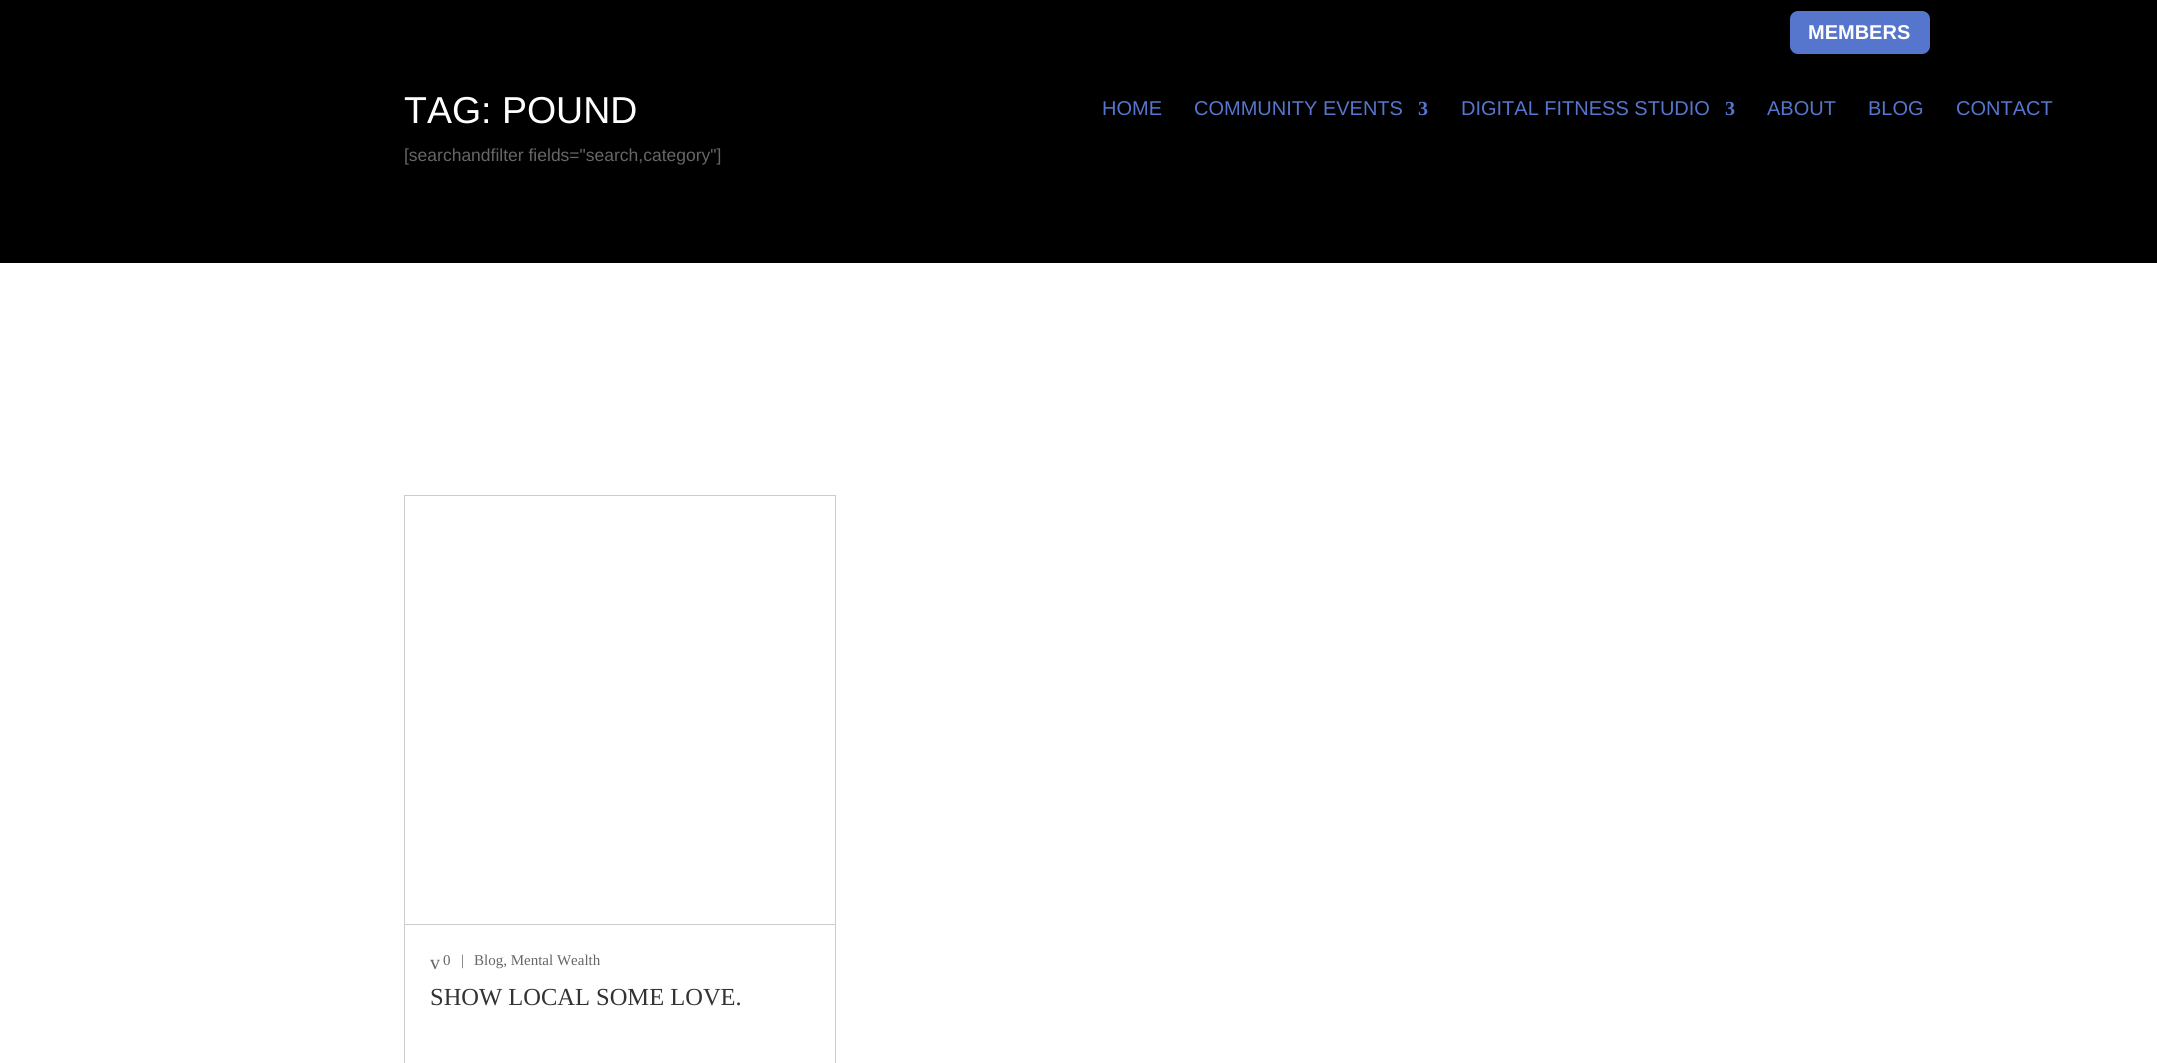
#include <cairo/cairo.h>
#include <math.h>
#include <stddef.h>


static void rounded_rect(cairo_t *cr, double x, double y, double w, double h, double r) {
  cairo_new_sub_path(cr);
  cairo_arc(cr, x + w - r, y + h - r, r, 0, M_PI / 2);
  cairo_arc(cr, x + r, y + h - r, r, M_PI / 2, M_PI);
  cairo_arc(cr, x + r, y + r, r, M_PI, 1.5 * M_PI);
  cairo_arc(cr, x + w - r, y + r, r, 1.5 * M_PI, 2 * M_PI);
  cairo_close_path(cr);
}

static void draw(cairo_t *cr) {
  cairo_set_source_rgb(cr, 1, 1, 1);
  cairo_paint(cr);
  cairo_set_source_rgb(cr, 0, 0, 0);
  cairo_rectangle(cr, 0, 0, 2157, 263);
  cairo_fill(cr);
  cairo_set_source_rgb(cr, 86 / 255.0, 117 / 255.0, 205 / 255.0);
  rounded_rect(cr, 1790, 11, 140, 43, 8);
  cairo_fill(cr);
  cairo_rectangle(cr, 404.5, 495.5, 431, 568);
  cairo_set_source_rgb(cr, 204 / 255.0, 204 / 255.0, 204 / 255.0);
  cairo_set_line_width(cr, 1);
  cairo_stroke(cr);
  cairo_rectangle(cr, 405, 924, 430, 1);
  cairo_fill(cr);
  cairo_select_font_face(cr, "Liberation Sans", CAIRO_FONT_SLANT_NORMAL, CAIRO_FONT_WEIGHT_BOLD);
  cairo_set_font_size(cr, 20);
  cairo_set_source_rgb(cr, 1, 1, 1);
  cairo_move_to(cr, 1808, 39);
  cairo_show_text(cr, "MEMBERS");
  cairo_select_font_face(cr, "Liberation Sans", CAIRO_FONT_SLANT_NORMAL, CAIRO_FONT_WEIGHT_NORMAL);
  cairo_set_font_size(cr, 37.5);
  cairo_move_to(cr, 404, 123);
  cairo_show_text(cr, "TAG: POUND");
  cairo_set_font_size(cr, 17.5);
  cairo_set_source_rgb(cr, 102 / 255.0, 102 / 255.0, 102 / 255.0);
  cairo_move_to(cr, 404, 161);
  cairo_show_text(cr, "[searchandfilter fields=\"search,category\"]");
  cairo_select_font_face(cr, "Liberation Serif", CAIRO_FONT_SLANT_NORMAL, CAIRO_FONT_WEIGHT_NORMAL);
  cairo_set_font_size(cr, 20);
  cairo_move_to(cr, 430, 969);
  cairo_show_text(cr, "v");
  cairo_set_font_size(cr, 15);
  cairo_move_to(cr, 443, 965);
  cairo_show_text(cr, "0");
  cairo_move_to(cr, 461, 965);
  cairo_show_text(cr, "|");
  cairo_move_to(cr, 474, 965);
  cairo_show_text(cr, "Blog, Mental Wealth");
  cairo_set_font_size(cr, 24.5);
  cairo_set_source_rgb(cr, 51 / 255.0, 51 / 255.0, 51 / 255.0);
  cairo_move_to(cr, 430, 1005);
  cairo_show_text(cr, "SHOW LOCAL SOME LOVE.");
  cairo_select_font_face(cr, "Liberation Sans", CAIRO_FONT_SLANT_NORMAL, CAIRO_FONT_WEIGHT_NORMAL);
  cairo_set_font_size(cr, 20);
  cairo_set_source_rgb(cr, 86 / 255.0, 117 / 255.0, 205 / 255.0);
  cairo_move_to(cr, 1102, 115);
  cairo_show_text(cr, "HOME");
  cairo_move_to(cr, 1194, 115);
  cairo_show_text(cr, "COMMUNITY EVENTS");
  cairo_select_font_face(cr, "Liberation Serif", CAIRO_FONT_SLANT_NORMAL, CAIRO_FONT_WEIGHT_BOLD);
  cairo_move_to(cr, 1418, 115);
  cairo_show_text(cr, "3");
  cairo_select_font_face(cr, "Liberation Sans", CAIRO_FONT_SLANT_NORMAL, CAIRO_FONT_WEIGHT_NORMAL);
  cairo_move_to(cr, 1461, 115);
  cairo_show_text(cr, "DIGITAL FITNESS STUDIO");
  cairo_select_font_face(cr, "Liberation Serif", CAIRO_FONT_SLANT_NORMAL, CAIRO_FONT_WEIGHT_BOLD);
  cairo_move_to(cr, 1725, 115);
  cairo_show_text(cr, "3");
  cairo_select_font_face(cr, "Liberation Sans", CAIRO_FONT_SLANT_NORMAL, CAIRO_FONT_WEIGHT_NORMAL);
  cairo_move_to(cr, 1767, 115);
  cairo_show_text(cr, "ABOUT");
  cairo_move_to(cr, 1868, 115);
  cairo_show_text(cr, "BLOG");
  cairo_move_to(cr, 1956, 115);
  cairo_show_text(cr, "CONTACT");
}

int main(void) {
  cairo_surface_t *surface = cairo_image_surface_create(CAIRO_FORMAT_RGB24, 2157, 1063);
  cairo_t *cr = cairo_create(surface);
  cairo_font_options_t *options = cairo_font_options_create();
  cairo_font_options_set_hint_metrics(options, CAIRO_HINT_METRICS_OFF);
  cairo_font_options_set_hint_style(options, CAIRO_HINT_STYLE_NONE);
  cairo_set_font_options(cr, options);
  cairo_set_miter_limit(cr, 4);
  draw(cr);
  cairo_surface_write_to_png(surface, "out.png");
  cairo_font_options_destroy(options);
  cairo_destroy(cr);
  cairo_surface_destroy(surface);
  return 0;
}
